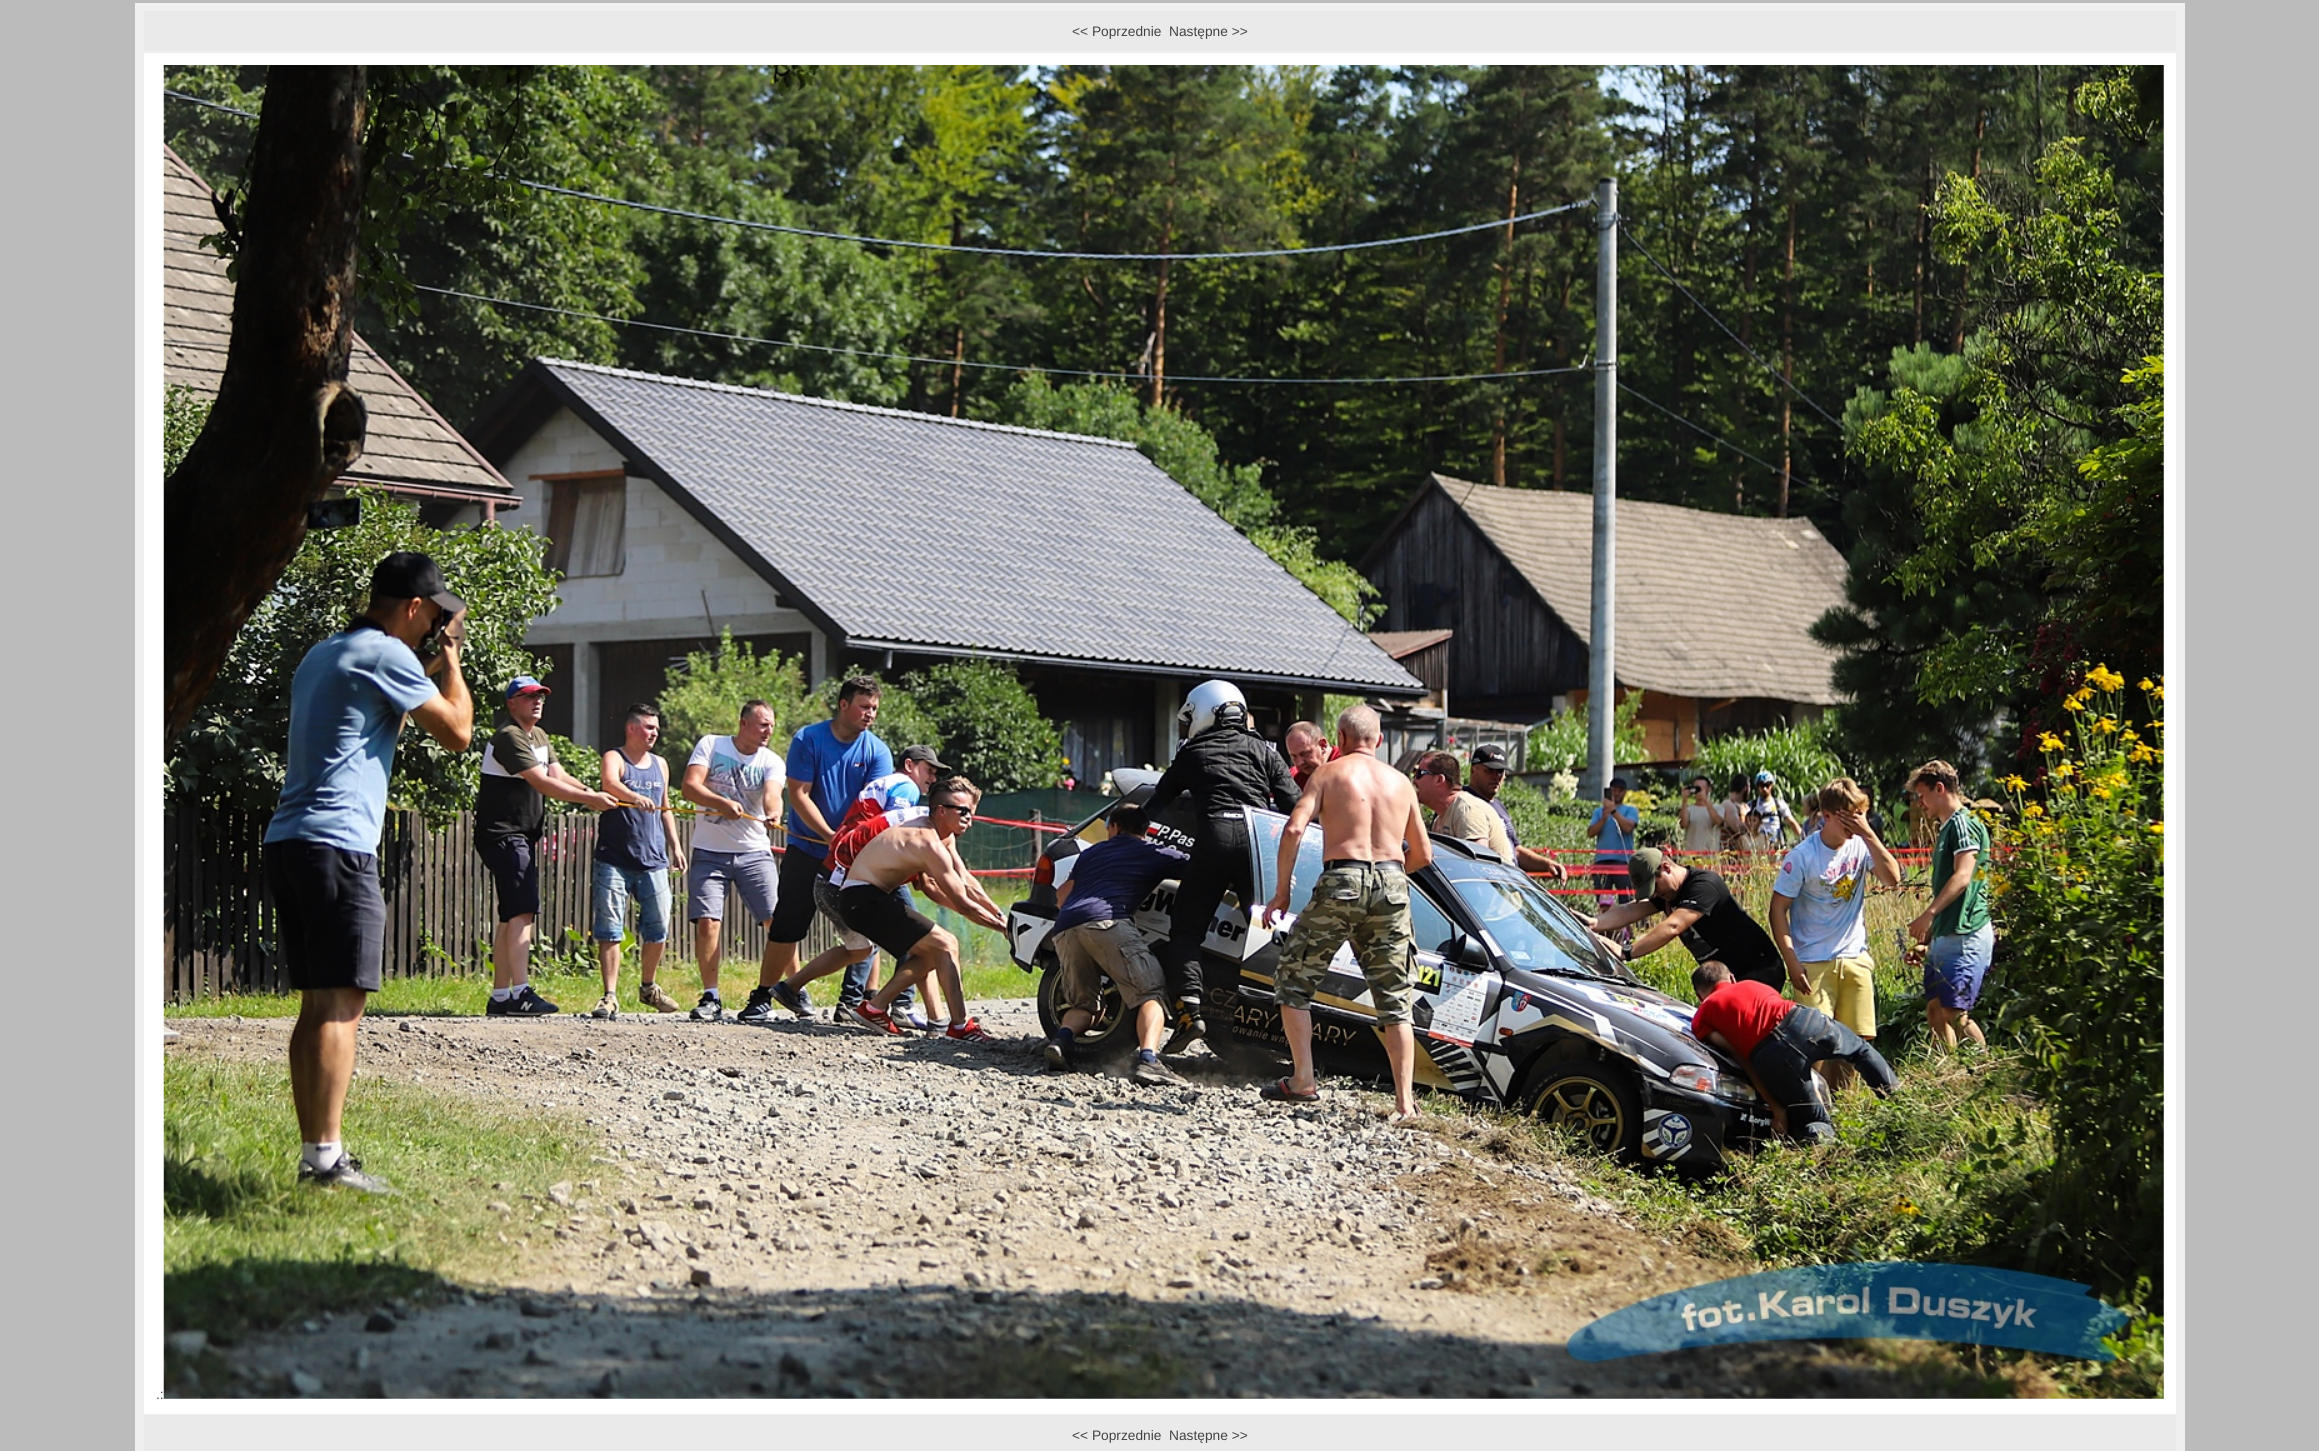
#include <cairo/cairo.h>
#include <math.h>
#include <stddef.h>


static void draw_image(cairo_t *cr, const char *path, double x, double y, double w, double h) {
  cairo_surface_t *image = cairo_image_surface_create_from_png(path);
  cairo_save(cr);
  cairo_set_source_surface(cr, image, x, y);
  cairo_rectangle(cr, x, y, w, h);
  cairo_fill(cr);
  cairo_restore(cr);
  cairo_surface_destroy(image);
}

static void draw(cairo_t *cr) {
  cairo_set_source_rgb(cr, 187 / 255.0, 187 / 255.0, 187 / 255.0);
  cairo_paint(cr);
  cairo_set_source_rgb(cr, 239 / 255.0, 239 / 255.0, 239 / 255.0);
  cairo_rectangle(cr, 135, 3, 2050, 1448);
  cairo_fill(cr);
  cairo_set_source_rgb(cr, 234 / 255.0, 234 / 255.0, 234 / 255.0);
  cairo_rectangle(cr, 144, 11, 2032, 40);
  cairo_fill(cr);
  cairo_set_source_rgb(cr, 1, 1, 1);
  cairo_rectangle(cr, 144, 53, 2032, 1361);
  cairo_fill(cr);
  draw_image(cr, "images/1.png", 163, 65, 2001, 1334);
  cairo_set_source_rgb(cr, 234 / 255.0, 234 / 255.0, 234 / 255.0);
  cairo_rectangle(cr, 144, 1415, 2032, 36);
  cairo_fill(cr);
  cairo_select_font_face(cr, "Liberation Sans", CAIRO_FONT_SLANT_NORMAL, CAIRO_FONT_WEIGHT_NORMAL);
  cairo_set_font_size(cr, 13.75);
  cairo_set_source_rgb(cr, 67 / 255.0, 67 / 255.0, 67 / 255.0);
  cairo_move_to(cr, 1072, 36);
  cairo_show_text(cr, "<< Poprzednie");
  cairo_move_to(cr, 1169, 36);
  cairo_show_text(cr, "Następne >>");
  cairo_move_to(cr, 156, 1399);
  cairo_show_text(cr, ".:");
  cairo_move_to(cr, 1072, 1440);
  cairo_show_text(cr, "<< Poprzednie");
  cairo_move_to(cr, 1169, 1440);
  cairo_show_text(cr, "Następne >>");
}

int main(void) {
  cairo_surface_t *surface = cairo_image_surface_create(CAIRO_FORMAT_RGB24, 2319, 1451);
  cairo_t *cr = cairo_create(surface);
  cairo_font_options_t *options = cairo_font_options_create();
  cairo_font_options_set_hint_metrics(options, CAIRO_HINT_METRICS_OFF);
  cairo_font_options_set_hint_style(options, CAIRO_HINT_STYLE_NONE);
  cairo_set_font_options(cr, options);
  cairo_set_miter_limit(cr, 4);
  draw(cr);
  cairo_surface_write_to_png(surface, "out.png");
  cairo_font_options_destroy(options);
  cairo_destroy(cr);
  cairo_surface_destroy(surface);
  return 0;
}
